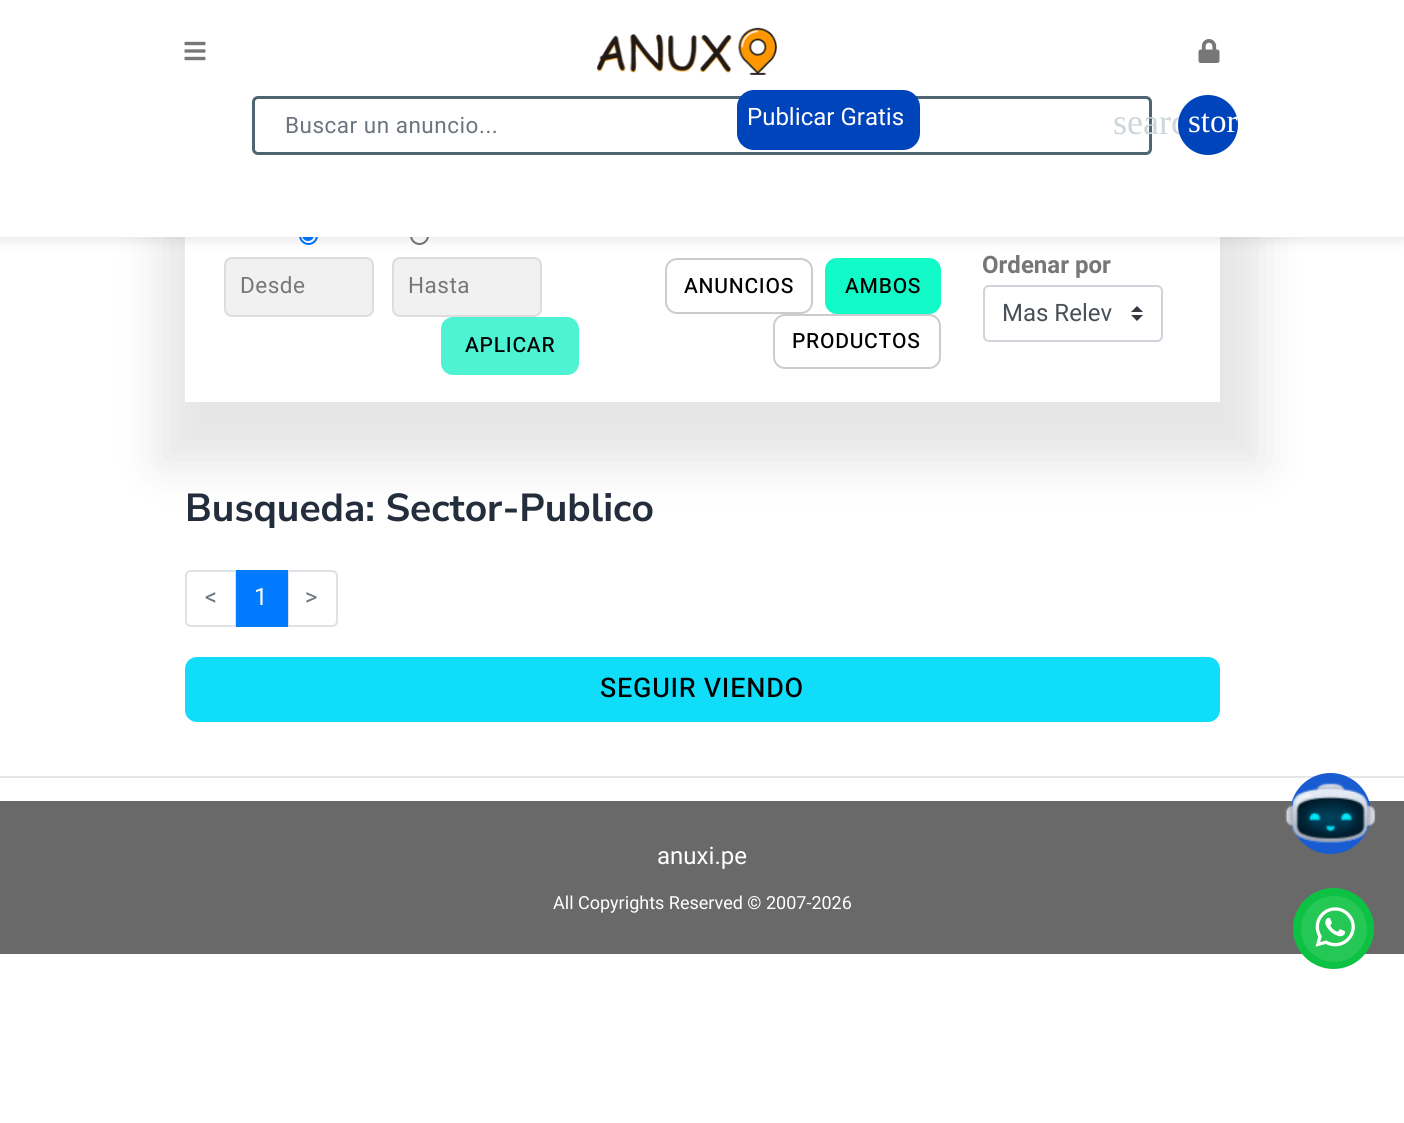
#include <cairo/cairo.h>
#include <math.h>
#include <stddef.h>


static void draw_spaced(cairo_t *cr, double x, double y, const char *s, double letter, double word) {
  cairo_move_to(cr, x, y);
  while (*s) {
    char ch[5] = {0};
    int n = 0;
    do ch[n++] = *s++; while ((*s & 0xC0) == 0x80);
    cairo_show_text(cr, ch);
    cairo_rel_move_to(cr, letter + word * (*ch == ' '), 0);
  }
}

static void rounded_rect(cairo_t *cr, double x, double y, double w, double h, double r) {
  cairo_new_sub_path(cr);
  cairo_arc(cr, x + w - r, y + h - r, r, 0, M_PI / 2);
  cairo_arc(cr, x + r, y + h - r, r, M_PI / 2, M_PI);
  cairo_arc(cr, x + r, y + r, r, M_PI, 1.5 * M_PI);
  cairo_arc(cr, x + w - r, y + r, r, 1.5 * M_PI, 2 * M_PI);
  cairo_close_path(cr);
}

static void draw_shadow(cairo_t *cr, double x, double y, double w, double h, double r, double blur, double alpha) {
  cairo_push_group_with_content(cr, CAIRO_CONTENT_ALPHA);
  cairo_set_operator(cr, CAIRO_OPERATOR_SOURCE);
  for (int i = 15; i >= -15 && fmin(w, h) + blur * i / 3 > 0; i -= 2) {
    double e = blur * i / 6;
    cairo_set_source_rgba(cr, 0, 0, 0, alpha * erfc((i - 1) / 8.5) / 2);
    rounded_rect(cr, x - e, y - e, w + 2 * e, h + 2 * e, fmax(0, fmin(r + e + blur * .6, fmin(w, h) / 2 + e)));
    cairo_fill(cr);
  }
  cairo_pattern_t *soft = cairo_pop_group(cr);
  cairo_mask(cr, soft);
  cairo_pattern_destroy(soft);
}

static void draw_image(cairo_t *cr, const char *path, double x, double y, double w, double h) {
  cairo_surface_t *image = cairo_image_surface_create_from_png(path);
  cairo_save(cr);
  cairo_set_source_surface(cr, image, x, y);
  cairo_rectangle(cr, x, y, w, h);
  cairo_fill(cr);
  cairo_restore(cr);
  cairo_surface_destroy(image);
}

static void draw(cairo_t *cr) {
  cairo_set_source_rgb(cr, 1, 1, 1);
  cairo_paint(cr);
  cairo_save(cr);
  cairo_set_fill_rule(cr, CAIRO_FILL_RULE_EVEN_ODD);
  cairo_new_path(cr);
  cairo_move_to(cr, 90, 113);
  cairo_line_to(cr, 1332, 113);
  cairo_line_to(cr, 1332, 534);
  cairo_line_to(cr, 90, 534);
  cairo_close_path(cr);
  cairo_move_to(cr, 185, 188);
  cairo_line_to(cr, 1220, 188);
  cairo_line_to(cr, 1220, 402);
  cairo_line_to(cr, 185, 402);
  cairo_close_path(cr);
  cairo_clip(cr);
  cairo_set_source_rgb(cr, 0, 0, 0);
  draw_shadow(cr, 159, 182, 1104, 283, 0, 22.5, 0.1);
  cairo_restore(cr);
  cairo_set_source_rgb(cr, 1, 1, 1);
  rounded_rect(cr, 185, 188, 1035, 214, 6);
  cairo_fill(cr);
  rounded_rect(cr, 300, 226, 17, 18, 8.5);
  cairo_set_source_rgb(cr, 0, 117 / 255.0, 1);
  cairo_stroke(cr);
  cairo_arc(cr, 308, 235, 6, 0, 2 * M_PI);
  cairo_fill(cr);
  rounded_rect(cr, 411, 226, 17, 18, 8.5);
  cairo_set_source_rgb(cr, 118 / 255.0, 118 / 255.0, 118 / 255.0);
  cairo_stroke(cr);
  cairo_set_source_rgb(cr, 241 / 255.0, 241 / 255.0, 241 / 255.0);
  rounded_rect(cr, 225, 258, 148, 58, 7);
  cairo_fill_preserve(cr);
  cairo_set_source_rgb(cr, 221 / 255.0, 221 / 255.0, 221 / 255.0);
  cairo_stroke(cr);
  cairo_set_source_rgb(cr, 241 / 255.0, 241 / 255.0, 241 / 255.0);
  rounded_rect(cr, 393, 258, 148, 58, 7);
  cairo_fill_preserve(cr);
  cairo_set_source_rgb(cr, 221 / 255.0, 221 / 255.0, 221 / 255.0);
  cairo_stroke(cr);
  rounded_rect(cr, 666, 259, 146, 54, 11);
  cairo_set_source_rgb(cr, 204 / 255.0, 204 / 255.0, 204 / 255.0);
  cairo_stroke(cr);
  cairo_set_source_rgb(cr, 18 / 255.0, 250 / 255.0, 200 / 255.0);
  rounded_rect(cr, 826, 259, 114, 54, 11);
  cairo_fill_preserve(cr);
  cairo_stroke(cr);
  cairo_set_source_rgb(cr, 0, 0, 0);
  draw_shadow(cr, 0, 3, 1404, 237, 0, 6, 0.1);
  cairo_set_source_rgb(cr, 1, 1, 1);
  cairo_rectangle(cr, 0, 0, 1404, 237);
  cairo_fill(cr);
  draw_image(cr, "images/1.png", 184, 41, 22, 20);
  draw_image(cr, "images/2.png", 597, 27, 180, 48);
  draw_image(cr, "images/3.png", 1198, 39, 22, 24);
  rounded_rect(cr, 253.5, 97.5, 897, 56, 4.5);
  cairo_set_source_rgb(cr, 78 / 255.0, 102 / 255.0, 113 / 255.0);
  cairo_set_line_width(cr, 3);
  cairo_stroke(cr);
  cairo_set_source_rgb(cr, 0, 68 / 255.0, 187 / 255.0);
  rounded_rect(cr, 737, 90, 183, 60, 17);
  cairo_fill(cr);
  cairo_set_source_rgb(cr, 78 / 255.0, 243 / 255.0, 212 / 255.0);
  rounded_rect(cr, 441, 317, 138, 58, 12);
  cairo_fill(cr);
  rounded_rect(cr, 774, 315, 166, 53, 11);
  cairo_set_source_rgb(cr, 204 / 255.0, 204 / 255.0, 204 / 255.0);
  cairo_set_line_width(cr, 2);
  cairo_stroke(cr);
  draw_image(cr, "images/4.png", 1131, 306, 12, 15);
  rounded_rect(cr, 984, 286, 178, 55, 5);
  cairo_set_source_rgb(cr, 206 / 255.0, 212 / 255.0, 218 / 255.0);
  cairo_stroke(cr);
  cairo_new_path(cr);
  cairo_move_to(cr, 191, 571);
  cairo_line_to(cr, 236, 571);
  cairo_line_to(cr, 236, 626);
  cairo_line_to(cr, 191, 626);
  cairo_curve_to(cr, 188, 626, 186, 624, 186, 621);
  cairo_line_to(cr, 186, 576);
  cairo_curve_to(cr, 186, 573, 188, 571, 191, 571);
  cairo_close_path(cr);
  cairo_set_source_rgb(cr, 222 / 255.0, 226 / 255.0, 230 / 255.0);
  cairo_stroke(cr);
  cairo_new_path(cr);
  cairo_move_to(cr, 288, 571);
  cairo_line_to(cr, 332, 571);
  cairo_curve_to(cr, 335, 571, 337, 573, 337, 576);
  cairo_line_to(cr, 337, 621);
  cairo_curve_to(cr, 337, 624, 335, 626, 332, 626);
  cairo_line_to(cr, 288, 626);
  cairo_close_path(cr);
  cairo_stroke(cr);
  cairo_set_source_rgb(cr, 0, 123 / 255.0, 1);
  cairo_rectangle(cr, 236, 570, 52, 57);
  cairo_fill(cr);
  cairo_set_source_rgb(cr, 16 / 255.0, 221 / 255.0, 250 / 255.0);
  rounded_rect(cr, 185, 657, 1035, 65, 12);
  cairo_fill(cr);
  cairo_set_source_rgb(cr, 230 / 255.0, 230 / 255.0, 230 / 255.0);
  cairo_rectangle(cr, 0, 776, 1404, 2);
  cairo_fill(cr);
  cairo_set_source_rgb(cr, 105 / 255.0, 105 / 255.0, 105 / 255.0);
  cairo_rectangle(cr, 0, 801, 1404, 153);
  cairo_fill(cr);
  cairo_set_source_rgb(cr, 25 / 255.0, 92 / 255.0, 209 / 255.0);
  cairo_arc(cr, 1330.5, 813.5, 40.5, 0, 2 * M_PI);
  cairo_fill(cr);
  draw_image(cr, "images/5.png", 1285, 782, 91, 61);
  cairo_set_source_rgb(cr, 13 / 255.0, 193 / 255.0, 67 / 255.0);
  cairo_arc(cr, 1333.5, 928.5, 40.5, 0, 2 * M_PI);
  cairo_fill(cr);
  draw_image(cr, "images/6.png", 1315, 907, 40, 40);
  cairo_set_source_rgba(cr, 1, 1, 1, 0.1);
  cairo_arc(cr, 1334, 929, 33, 0, 2 * M_PI);
  cairo_fill(cr);
  cairo_select_font_face(cr, "Heebo", CAIRO_FONT_SLANT_NORMAL, CAIRO_FONT_WEIGHT_NORMAL);
  cairo_set_font_size(cr, 24);
  cairo_set_source_rgb(cr, 1, 1, 1);
  cairo_move_to(cr, 747, 125);
  cairo_show_text(cr, "Publicar Gratis");
  cairo_set_font_size(cr, 22.5);
  cairo_set_source_rgb(cr, 108 / 255.0, 117 / 255.0, 125 / 255.0);
  draw_spaced(cr, 285, 133, "Buscar un anuncio...", 0.5, 0);
  cairo_select_font_face(cr, "Liberation Serif", CAIRO_FONT_SLANT_NORMAL, CAIRO_FONT_WEIGHT_NORMAL);
  cairo_set_font_size(cr, 36);
  cairo_set_source_rgb(cr, 205 / 255.0, 214 / 255.0, 219 / 255.0);
  cairo_move_to(cr, 1113, 134);
  cairo_show_text(cr, "searc");
  cairo_set_source_rgb(cr, 0, 68 / 255.0, 187 / 255.0);
  cairo_new_path(cr);
  cairo_arc(cr, 1208, 125, 30, 0, 2 * M_PI);
  cairo_fill(cr);
  cairo_set_font_size(cr, 33);
  cairo_set_source_rgb(cr, 1, 1, 1);
  cairo_move_to(cr, 1188, 132);
  cairo_show_text(cr, "stor");
  cairo_select_font_face(cr, "Heebo", CAIRO_FONT_SLANT_NORMAL, CAIRO_FONT_WEIGHT_NORMAL);
  cairo_set_font_size(cr, 22.5);
  cairo_set_source_rgb(cr, 119 / 255.0, 119 / 255.0, 119 / 255.0);
  draw_spaced(cr, 240, 293, "Desde", 0.5, 0);
  draw_spaced(cr, 408, 293, "Hasta", 0.5, 0);
  cairo_select_font_face(cr, "Heebo Medium", CAIRO_FONT_SLANT_NORMAL, CAIRO_FONT_WEIGHT_NORMAL);
  cairo_set_font_size(cr, 21);
  cairo_set_source_rgb(cr, 0, 0, 0);
  draw_spaced(cr, 465, 352, "APLICAR", 0.75, 0);
  draw_spaced(cr, 684, 293, "ANUNCIOS", 0.75, 0);
  draw_spaced(cr, 845, 293, "AMBOS", 0.75, 0);
  draw_spaced(cr, 792, 348, "PRODUCTOS", 0.75, 0);
  cairo_select_font_face(cr, "Heebo", CAIRO_FONT_SLANT_NORMAL, CAIRO_FONT_WEIGHT_BOLD);
  cairo_set_font_size(cr, 24);
  cairo_set_source_rgb(cr, 119 / 255.0, 119 / 255.0, 119 / 255.0);
  cairo_move_to(cr, 982, 273);
  cairo_show_text(cr, "Ordenar por");
  cairo_select_font_face(cr, "Heebo", CAIRO_FONT_SLANT_NORMAL, CAIRO_FONT_WEIGHT_NORMAL);
  cairo_set_source_rgb(cr, 73 / 255.0, 80 / 255.0, 87 / 255.0);
  cairo_move_to(cr, 1002, 321);
  cairo_show_text(cr, "Mas Relev");
  cairo_select_font_face(cr, "Nunito Sans", CAIRO_FONT_SLANT_NORMAL, CAIRO_FONT_WEIGHT_BOLD);
  cairo_set_font_size(cr, 39);
  cairo_set_source_rgb(cr, 35 / 255.0, 45 / 255.0, 59 / 255.0);
  cairo_move_to(cr, 185, 521);
  cairo_show_text(cr, "Busqueda: Sector-Publico");
  cairo_select_font_face(cr, "Heebo", CAIRO_FONT_SLANT_NORMAL, CAIRO_FONT_WEIGHT_NORMAL);
  cairo_set_font_size(cr, 24);
  cairo_set_source_rgb(cr, 108 / 255.0, 117 / 255.0, 125 / 255.0);
  cairo_move_to(cr, 204, 605);
  cairo_show_text(cr, "<");
  cairo_set_source_rgb(cr, 1, 1, 1);
  cairo_move_to(cr, 254, 605);
  cairo_show_text(cr, "1");
  cairo_set_source_rgb(cr, 108 / 255.0, 117 / 255.0, 125 / 255.0);
  cairo_move_to(cr, 305, 605);
  cairo_show_text(cr, ">");
  cairo_select_font_face(cr, "Heebo Medium", CAIRO_FONT_SLANT_NORMAL, CAIRO_FONT_WEIGHT_NORMAL);
  cairo_set_font_size(cr, 27);
  cairo_set_source_rgb(cr, 0, 0, 0);
  draw_spaced(cr, 600, 697, "SEGUIR VIENDO", 0.75, 0);
  cairo_select_font_face(cr, "Heebo", CAIRO_FONT_SLANT_NORMAL, CAIRO_FONT_WEIGHT_NORMAL);
  cairo_set_font_size(cr, 24);
  cairo_set_source_rgb(cr, 1, 1, 1);
  cairo_move_to(cr, 657, 864);
  cairo_show_text(cr, "anuxi.pe");
  cairo_set_font_size(cr, 18);
  cairo_move_to(cr, 553, 909);
  cairo_show_text(cr, "All Copyrights Reserved © 2007-2026");
}

int main(void) {
  cairo_surface_t *surface = cairo_image_surface_create(CAIRO_FORMAT_RGB24, 1404, 1123);
  cairo_t *cr = cairo_create(surface);
  cairo_font_options_t *options = cairo_font_options_create();
  cairo_font_options_set_hint_metrics(options, CAIRO_HINT_METRICS_OFF);
  cairo_font_options_set_hint_style(options, CAIRO_HINT_STYLE_NONE);
  cairo_set_font_options(cr, options);
  cairo_set_miter_limit(cr, 4);
  draw(cr);
  cairo_surface_write_to_png(surface, "out.png");
  cairo_font_options_destroy(options);
  cairo_destroy(cr);
  cairo_surface_destroy(surface);
  return 0;
}
